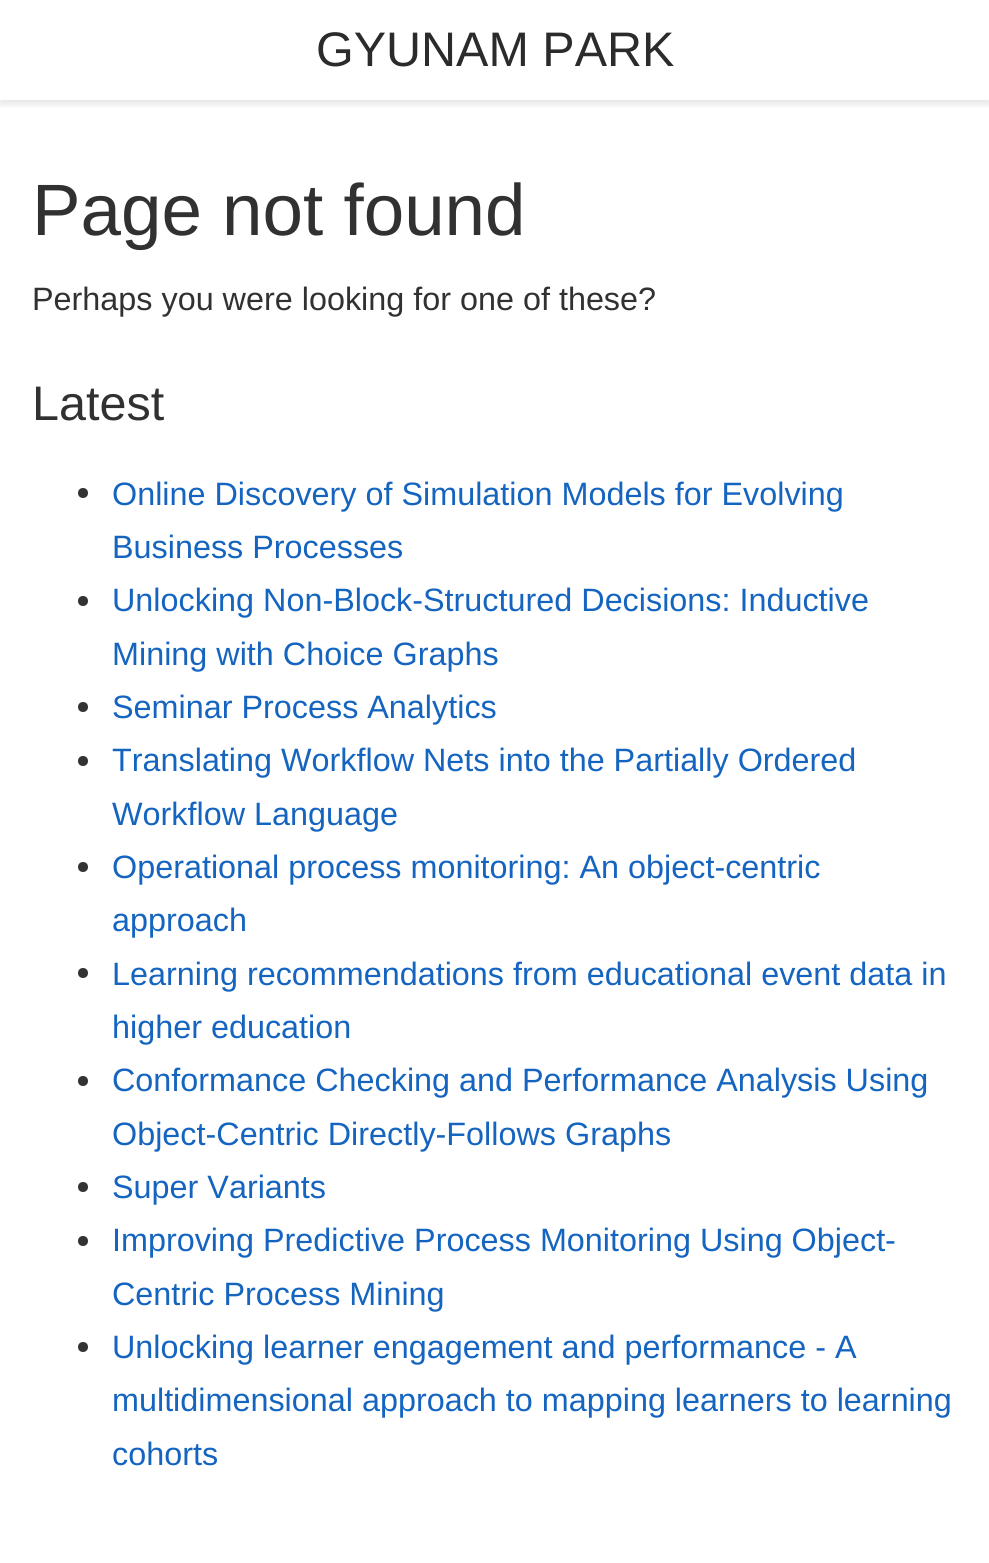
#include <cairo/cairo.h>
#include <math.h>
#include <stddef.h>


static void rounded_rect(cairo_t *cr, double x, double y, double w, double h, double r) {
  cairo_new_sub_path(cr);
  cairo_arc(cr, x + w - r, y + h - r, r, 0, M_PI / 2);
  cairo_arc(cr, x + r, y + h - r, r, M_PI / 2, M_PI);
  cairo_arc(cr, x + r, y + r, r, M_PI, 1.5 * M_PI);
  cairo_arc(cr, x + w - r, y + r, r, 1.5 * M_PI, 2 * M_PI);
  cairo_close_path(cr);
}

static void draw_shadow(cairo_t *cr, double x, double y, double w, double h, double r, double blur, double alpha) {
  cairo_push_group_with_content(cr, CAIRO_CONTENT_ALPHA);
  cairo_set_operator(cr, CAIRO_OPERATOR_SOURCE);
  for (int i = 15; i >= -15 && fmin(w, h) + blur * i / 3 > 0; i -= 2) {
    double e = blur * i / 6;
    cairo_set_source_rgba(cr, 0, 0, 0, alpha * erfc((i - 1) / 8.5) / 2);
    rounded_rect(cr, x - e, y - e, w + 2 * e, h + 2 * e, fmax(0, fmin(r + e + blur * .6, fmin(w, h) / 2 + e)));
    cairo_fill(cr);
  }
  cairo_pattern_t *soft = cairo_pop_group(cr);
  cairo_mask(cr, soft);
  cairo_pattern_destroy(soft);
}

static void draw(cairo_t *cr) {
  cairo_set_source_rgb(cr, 1, 1, 1);
  cairo_paint(cr);
  cairo_save(cr);
  cairo_rectangle(cr, 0, 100, 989, 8);
  cairo_clip(cr);
  cairo_set_source_rgb(cr, 0, 0, 0);
  draw_shadow(cr, 0, 4, 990, 100, 0, 4, 0.11);
  cairo_restore(cr);
  cairo_set_source_rgb(cr, 51 / 255.0, 51 / 255.0, 51 / 255.0);
  cairo_arc(cr, 83, 493, 5, 0, 2 * M_PI);
  cairo_fill(cr);
  cairo_arc(cr, 83, 601, 5, 0, 2 * M_PI);
  cairo_fill(cr);
  cairo_arc(cr, 83, 707, 5, 0, 2 * M_PI);
  cairo_fill(cr);
  cairo_arc(cr, 83, 761, 5, 0, 2 * M_PI);
  cairo_fill(cr);
  cairo_arc(cr, 83, 867, 5, 0, 2 * M_PI);
  cairo_fill(cr);
  cairo_arc(cr, 83, 973, 5, 0, 2 * M_PI);
  cairo_fill(cr);
  cairo_arc(cr, 83, 1081, 5, 0, 2 * M_PI);
  cairo_fill(cr);
  cairo_arc(cr, 83, 1187, 5, 0, 2 * M_PI);
  cairo_fill(cr);
  cairo_arc(cr, 83, 1241, 5, 0, 2 * M_PI);
  cairo_fill(cr);
  cairo_arc(cr, 83, 1347, 5, 0, 2 * M_PI);
  cairo_fill(cr);
  cairo_select_font_face(cr, "Liberation Sans", CAIRO_FONT_SLANT_NORMAL, CAIRO_FONT_WEIGHT_NORMAL);
  cairo_set_font_size(cr, 48.5);
  cairo_set_source_rgb(cr, 43 / 255.0, 43 / 255.0, 43 / 255.0);
  cairo_move_to(cr, 316, 66);
  cairo_show_text(cr, "GYUNAM PARK");
  cairo_set_font_size(cr, 72.75);
  cairo_set_source_rgb(cr, 49 / 255.0, 49 / 255.0, 49 / 255.0);
  cairo_move_to(cr, 32, 235);
  cairo_show_text(cr, "Page not found");
  cairo_set_font_size(cr, 32.35);
  cairo_move_to(cr, 32, 310);
  cairo_show_text(cr, "Perhaps you were looking for one of these?");
  cairo_set_font_size(cr, 48.5);
  cairo_move_to(cr, 32, 420);
  cairo_show_text(cr, "Latest");
  cairo_set_font_size(cr, 32.35);
  cairo_set_source_rgb(cr, 21 / 255.0, 101 / 255.0, 192 / 255.0);
  cairo_move_to(cr, 112, 505);
  cairo_show_text(cr, "Online Discovery of Simulation Models for Evolving");
  cairo_move_to(cr, 112, 558);
  cairo_show_text(cr, "Business Processes");
  cairo_move_to(cr, 112, 611);
  cairo_show_text(cr, "Unlocking Non-Block-Structured Decisions: Inductive");
  cairo_move_to(cr, 112, 665);
  cairo_show_text(cr, "Mining with Choice Graphs");
  cairo_move_to(cr, 112, 718);
  cairo_show_text(cr, "Seminar Process Analytics");
  cairo_move_to(cr, 112, 771);
  cairo_show_text(cr, "Translating Workflow Nets into the Partially Ordered");
  cairo_move_to(cr, 112, 825);
  cairo_show_text(cr, "Workflow Language");
  cairo_move_to(cr, 112, 878);
  cairo_show_text(cr, "Operational process monitoring: An object-centric");
  cairo_move_to(cr, 112, 931);
  cairo_show_text(cr, "approach");
  cairo_move_to(cr, 112, 985);
  cairo_show_text(cr, "Learning recommendations from educational event data in");
  cairo_move_to(cr, 112, 1038);
  cairo_show_text(cr, "higher education");
  cairo_move_to(cr, 112, 1091);
  cairo_show_text(cr, "Conformance Checking and Performance Analysis Using");
  cairo_move_to(cr, 112, 1145);
  cairo_show_text(cr, "Object-Centric Directly-Follows Graphs");
  cairo_move_to(cr, 112, 1198);
  cairo_show_text(cr, "Super Variants");
  cairo_move_to(cr, 112, 1251);
  cairo_show_text(cr, "Improving Predictive Process Monitoring Using Object-");
  cairo_move_to(cr, 112, 1305);
  cairo_show_text(cr, "Centric Process Mining");
  cairo_move_to(cr, 112, 1358);
  cairo_show_text(cr, "Unlocking learner engagement and performance - A");
  cairo_move_to(cr, 112, 1411);
  cairo_show_text(cr, "multidimensional approach to mapping learners to learning");
  cairo_move_to(cr, 112, 1465);
  cairo_show_text(cr, "cohorts");
}

int main(void) {
  cairo_surface_t *surface = cairo_image_surface_create(CAIRO_FORMAT_RGB24, 989, 1563);
  cairo_t *cr = cairo_create(surface);
  cairo_font_options_t *options = cairo_font_options_create();
  cairo_font_options_set_hint_metrics(options, CAIRO_HINT_METRICS_OFF);
  cairo_font_options_set_hint_style(options, CAIRO_HINT_STYLE_NONE);
  cairo_set_font_options(cr, options);
  cairo_set_miter_limit(cr, 4);
  draw(cr);
  cairo_surface_write_to_png(surface, "out.png");
  cairo_font_options_destroy(options);
  cairo_destroy(cr);
  cairo_surface_destroy(surface);
  return 0;
}
